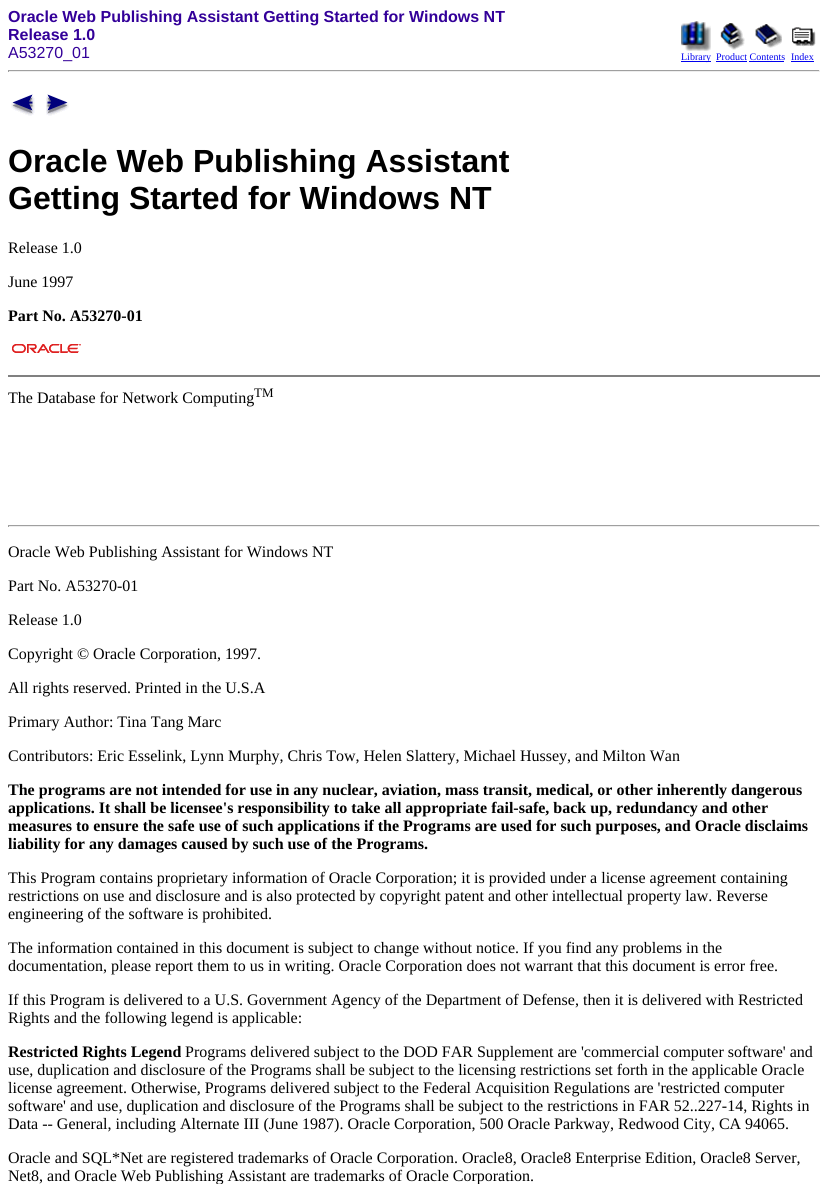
#include <cairo/cairo.h>
#include <math.h>
#include <stddef.h>


static void draw_image(cairo_t *cr, const char *path, double x, double y, double w, double h) {
  cairo_surface_t *image = cairo_image_surface_create_from_png(path);
  cairo_save(cr);
  cairo_set_source_surface(cr, image, x, y);
  cairo_rectangle(cr, x, y, w, h);
  cairo_fill(cr);
  cairo_restore(cr);
  cairo_surface_destroy(image);
}

static void draw(cairo_t *cr) {
  cairo_set_source_rgb(cr, 1, 1, 1);
  cairo_paint(cr);
  draw_image(cr, "images/1.png", 681, 21, 30, 30);
  cairo_set_source_rgb(cr, 0, 0, 238 / 255.0);
  cairo_rectangle(cr, 681, 61, 30, 1);
  cairo_fill(cr);
  draw_image(cr, "images/2.png", 755, 24, 27, 24);
  cairo_rectangle(cr, 749, 61, 35, 1);
  cairo_fill(cr);
  draw_image(cr, "images/3.png", 720, 23, 25, 27);
  cairo_rectangle(cr, 716, 61, 31, 1);
  cairo_fill(cr);
  draw_image(cr, "images/4.png", 792, 27, 24, 20);
  cairo_rectangle(cr, 791, 61, 23, 1);
  cairo_fill(cr);
  cairo_set_source_rgb(cr, 159 / 255.0, 159 / 255.0, 159 / 255.0);
  cairo_rectangle(cr, 8, 70, 812, 1);
  cairo_fill(cr);
  cairo_set_source_rgb(cr, 238 / 255.0, 238 / 255.0, 238 / 255.0);
  cairo_rectangle(cr, 819, 70, 1, 2);
  cairo_fill(cr);
  cairo_rectangle(cr, 8, 71, 812, 1);
  cairo_fill(cr);
  cairo_set_source_rgb(cr, 159 / 255.0, 159 / 255.0, 159 / 255.0);
  cairo_rectangle(cr, 8, 70, 1, 2);
  cairo_fill(cr);
  draw_image(cr, "images/5.png", 11, 94, 24, 22);
  draw_image(cr, "images/6.png", 46, 94, 23, 22);
  draw_image(cr, "images/7.png", 12, 344, 69, 9);
  cairo_set_source_rgb(cr, 128 / 255.0, 128 / 255.0, 128 / 255.0);
  cairo_rectangle(cr, 8, 375, 812, 2);
  cairo_fill(cr);
  cairo_set_source_rgb(cr, 159 / 255.0, 159 / 255.0, 159 / 255.0);
  cairo_rectangle(cr, 8, 525, 812, 1);
  cairo_fill(cr);
  cairo_set_source_rgb(cr, 238 / 255.0, 238 / 255.0, 238 / 255.0);
  cairo_rectangle(cr, 819, 525, 1, 2);
  cairo_fill(cr);
  cairo_rectangle(cr, 8, 526, 812, 1);
  cairo_fill(cr);
  cairo_set_source_rgb(cr, 159 / 255.0, 159 / 255.0, 159 / 255.0);
  cairo_rectangle(cr, 8, 525, 1, 2);
  cairo_fill(cr);
  cairo_select_font_face(cr, "Liberation Sans", CAIRO_FONT_SLANT_NORMAL, CAIRO_FONT_WEIGHT_BOLD);
  cairo_set_font_size(cr, 16);
  cairo_set_source_rgb(cr, 51 / 255.0, 0, 153 / 255.0);
  cairo_move_to(cr, 8, 22);
  cairo_show_text(cr, "Oracle Web Publishing Assistant Getting Started for Windows NT");
  cairo_move_to(cr, 8, 40);
  cairo_show_text(cr, "Release 1.0");
  cairo_select_font_face(cr, "Liberation Sans", CAIRO_FONT_SLANT_NORMAL, CAIRO_FONT_WEIGHT_NORMAL);
  cairo_move_to(cr, 8, 58);
  cairo_show_text(cr, "A53270_01");
  cairo_select_font_face(cr, "Liberation Serif", CAIRO_FONT_SLANT_NORMAL, CAIRO_FONT_WEIGHT_NORMAL);
  cairo_set_font_size(cr, 10);
  cairo_set_source_rgb(cr, 0, 0, 238 / 255.0);
  cairo_move_to(cr, 681, 60);
  cairo_show_text(cr, "Library");
  cairo_move_to(cr, 716, 60);
  cairo_show_text(cr, "Product Contents");
  cairo_move_to(cr, 791, 60);
  cairo_show_text(cr, "Index");
  cairo_select_font_face(cr, "Liberation Sans", CAIRO_FONT_SLANT_NORMAL, CAIRO_FONT_WEIGHT_BOLD);
  cairo_set_font_size(cr, 32);
  cairo_set_source_rgb(cr, 0, 0, 0);
  cairo_move_to(cr, 8, 172);
  cairo_show_text(cr, "Oracle Web Publishing Assistant");
  cairo_move_to(cr, 8, 209);
  cairo_show_text(cr, "Getting Started for Windows NT");
  cairo_select_font_face(cr, "Liberation Serif", CAIRO_FONT_SLANT_NORMAL, CAIRO_FONT_WEIGHT_NORMAL);
  cairo_set_font_size(cr, 16);
  cairo_move_to(cr, 8, 253);
  cairo_show_text(cr, "Release 1.0");
  cairo_move_to(cr, 8, 287);
  cairo_show_text(cr, "June 1997");
  cairo_select_font_face(cr, "Liberation Serif", CAIRO_FONT_SLANT_NORMAL, CAIRO_FONT_WEIGHT_BOLD);
  cairo_move_to(cr, 8, 321);
  cairo_show_text(cr, "Part No. A53270-01");
  cairo_select_font_face(cr, "Liberation Serif", CAIRO_FONT_SLANT_NORMAL, CAIRO_FONT_WEIGHT_NORMAL);
  cairo_move_to(cr, 8, 403);
  cairo_show_text(cr, "The Database for Network Computing");
  cairo_set_font_size(cr, 13);
  cairo_move_to(cr, 254, 397);
  cairo_show_text(cr, "TM");
  cairo_set_font_size(cr, 16);
  cairo_move_to(cr, 8, 557);
  cairo_show_text(cr, "Oracle Web Publishing Assistant for Windows NT");
  cairo_move_to(cr, 8, 591);
  cairo_show_text(cr, "Part No. A53270-01");
  cairo_move_to(cr, 8, 625);
  cairo_show_text(cr, "Release 1.0");
  cairo_move_to(cr, 8, 659);
  cairo_show_text(cr, "Copyright © Oracle Corporation, 1997.");
  cairo_move_to(cr, 8, 693);
  cairo_show_text(cr, "All rights reserved. Printed in the U.S.A");
  cairo_move_to(cr, 8, 727);
  cairo_show_text(cr, "Primary Author: Tina Tang Marc");
  cairo_move_to(cr, 8, 761);
  cairo_show_text(cr, "Contributors: Eric Esselink, Lynn Murphy, Chris Tow, Helen Slattery, Michael Hussey, and Milton Wan");
  cairo_select_font_face(cr, "Liberation Serif", CAIRO_FONT_SLANT_NORMAL, CAIRO_FONT_WEIGHT_BOLD);
  cairo_move_to(cr, 8, 795);
  cairo_show_text(cr, "The programs are not intended for use in any nuclear, aviation, mass transit, medical, or other inherently dangerous");
  cairo_move_to(cr, 8, 813);
  cairo_show_text(cr, "applications. It shall be licensee's responsibility to take all appropriate fail-safe, back up, redundancy and other");
  cairo_move_to(cr, 8, 831);
  cairo_show_text(cr, "measures to ensure the safe use of such applications if the Programs are used for such purposes, and Oracle disclaims");
  cairo_move_to(cr, 8, 849);
  cairo_show_text(cr, "liability for any damages caused by such use of the Programs.");
  cairo_select_font_face(cr, "Liberation Serif", CAIRO_FONT_SLANT_NORMAL, CAIRO_FONT_WEIGHT_NORMAL);
  cairo_move_to(cr, 8, 883);
  cairo_show_text(cr, "This Program contains proprietary information of Oracle Corporation; it is provided under a license agreement containing");
  cairo_move_to(cr, 8, 901);
  cairo_show_text(cr, "restrictions on use and disclosure and is also protected by copyright patent and other intellectual property law. Reverse");
  cairo_move_to(cr, 8, 919);
  cairo_show_text(cr, "engineering of the software is prohibited.");
  cairo_move_to(cr, 8, 953);
  cairo_show_text(cr, "The information contained in this document is subject to change without notice. If you find any problems in the");
  cairo_move_to(cr, 8, 971);
  cairo_show_text(cr, "documentation, please report them to us in writing. Oracle Corporation does not warrant that this document is error free.");
  cairo_move_to(cr, 8, 1005);
  cairo_show_text(cr, "If this Program is delivered to a U.S. Government Agency of the Department of Defense, then it is delivered with Restricted");
  cairo_move_to(cr, 8, 1023);
  cairo_show_text(cr, "Rights and the following legend is applicable:");
  cairo_select_font_face(cr, "Liberation Serif", CAIRO_FONT_SLANT_NORMAL, CAIRO_FONT_WEIGHT_BOLD);
  cairo_move_to(cr, 8, 1057);
  cairo_show_text(cr, "Restricted Rights Legend");
  cairo_select_font_face(cr, "Liberation Serif", CAIRO_FONT_SLANT_NORMAL, CAIRO_FONT_WEIGHT_NORMAL);
  cairo_move_to(cr, 185, 1057);
  cairo_show_text(cr, "Programs delivered subject to the DOD FAR Supplement are 'commercial computer software' and");
  cairo_move_to(cr, 8, 1075);
  cairo_show_text(cr, "use, duplication and disclosure of the Programs shall be subject to the licensing restrictions set forth in the applicable Oracle");
  cairo_move_to(cr, 8, 1093);
  cairo_show_text(cr, "license agreement. Otherwise, Programs delivered subject to the Federal Acquisition Regulations are 'restricted computer");
  cairo_move_to(cr, 8, 1111);
  cairo_show_text(cr, "software' and use, duplication and disclosure of the Programs shall be subject to the restrictions in FAR 52..227-14, Rights in");
  cairo_move_to(cr, 8, 1129);
  cairo_show_text(cr, "Data -- General, including Alternate III (June 1987). Oracle Corporation, 500 Oracle Parkway, Redwood City, CA 94065.");
  cairo_move_to(cr, 8, 1163);
  cairo_show_text(cr, "Oracle and SQL*Net are registered trademarks of Oracle Corporation. Oracle8, Oracle8 Enterprise Edition, Oracle8 Server,");
  cairo_move_to(cr, 8, 1181);
  cairo_show_text(cr, "Net8, and Oracle Web Publishing Assistant are trademarks of Oracle Corporation.");
}

int main(void) {
  cairo_surface_t *surface = cairo_image_surface_create(CAIRO_FORMAT_RGB24, 828, 1184);
  cairo_t *cr = cairo_create(surface);
  cairo_font_options_t *options = cairo_font_options_create();
  cairo_font_options_set_hint_metrics(options, CAIRO_HINT_METRICS_OFF);
  cairo_font_options_set_hint_style(options, CAIRO_HINT_STYLE_NONE);
  cairo_set_font_options(cr, options);
  cairo_set_miter_limit(cr, 4);
  draw(cr);
  cairo_surface_write_to_png(surface, "out.png");
  cairo_font_options_destroy(options);
  cairo_destroy(cr);
  cairo_surface_destroy(surface);
  return 0;
}
